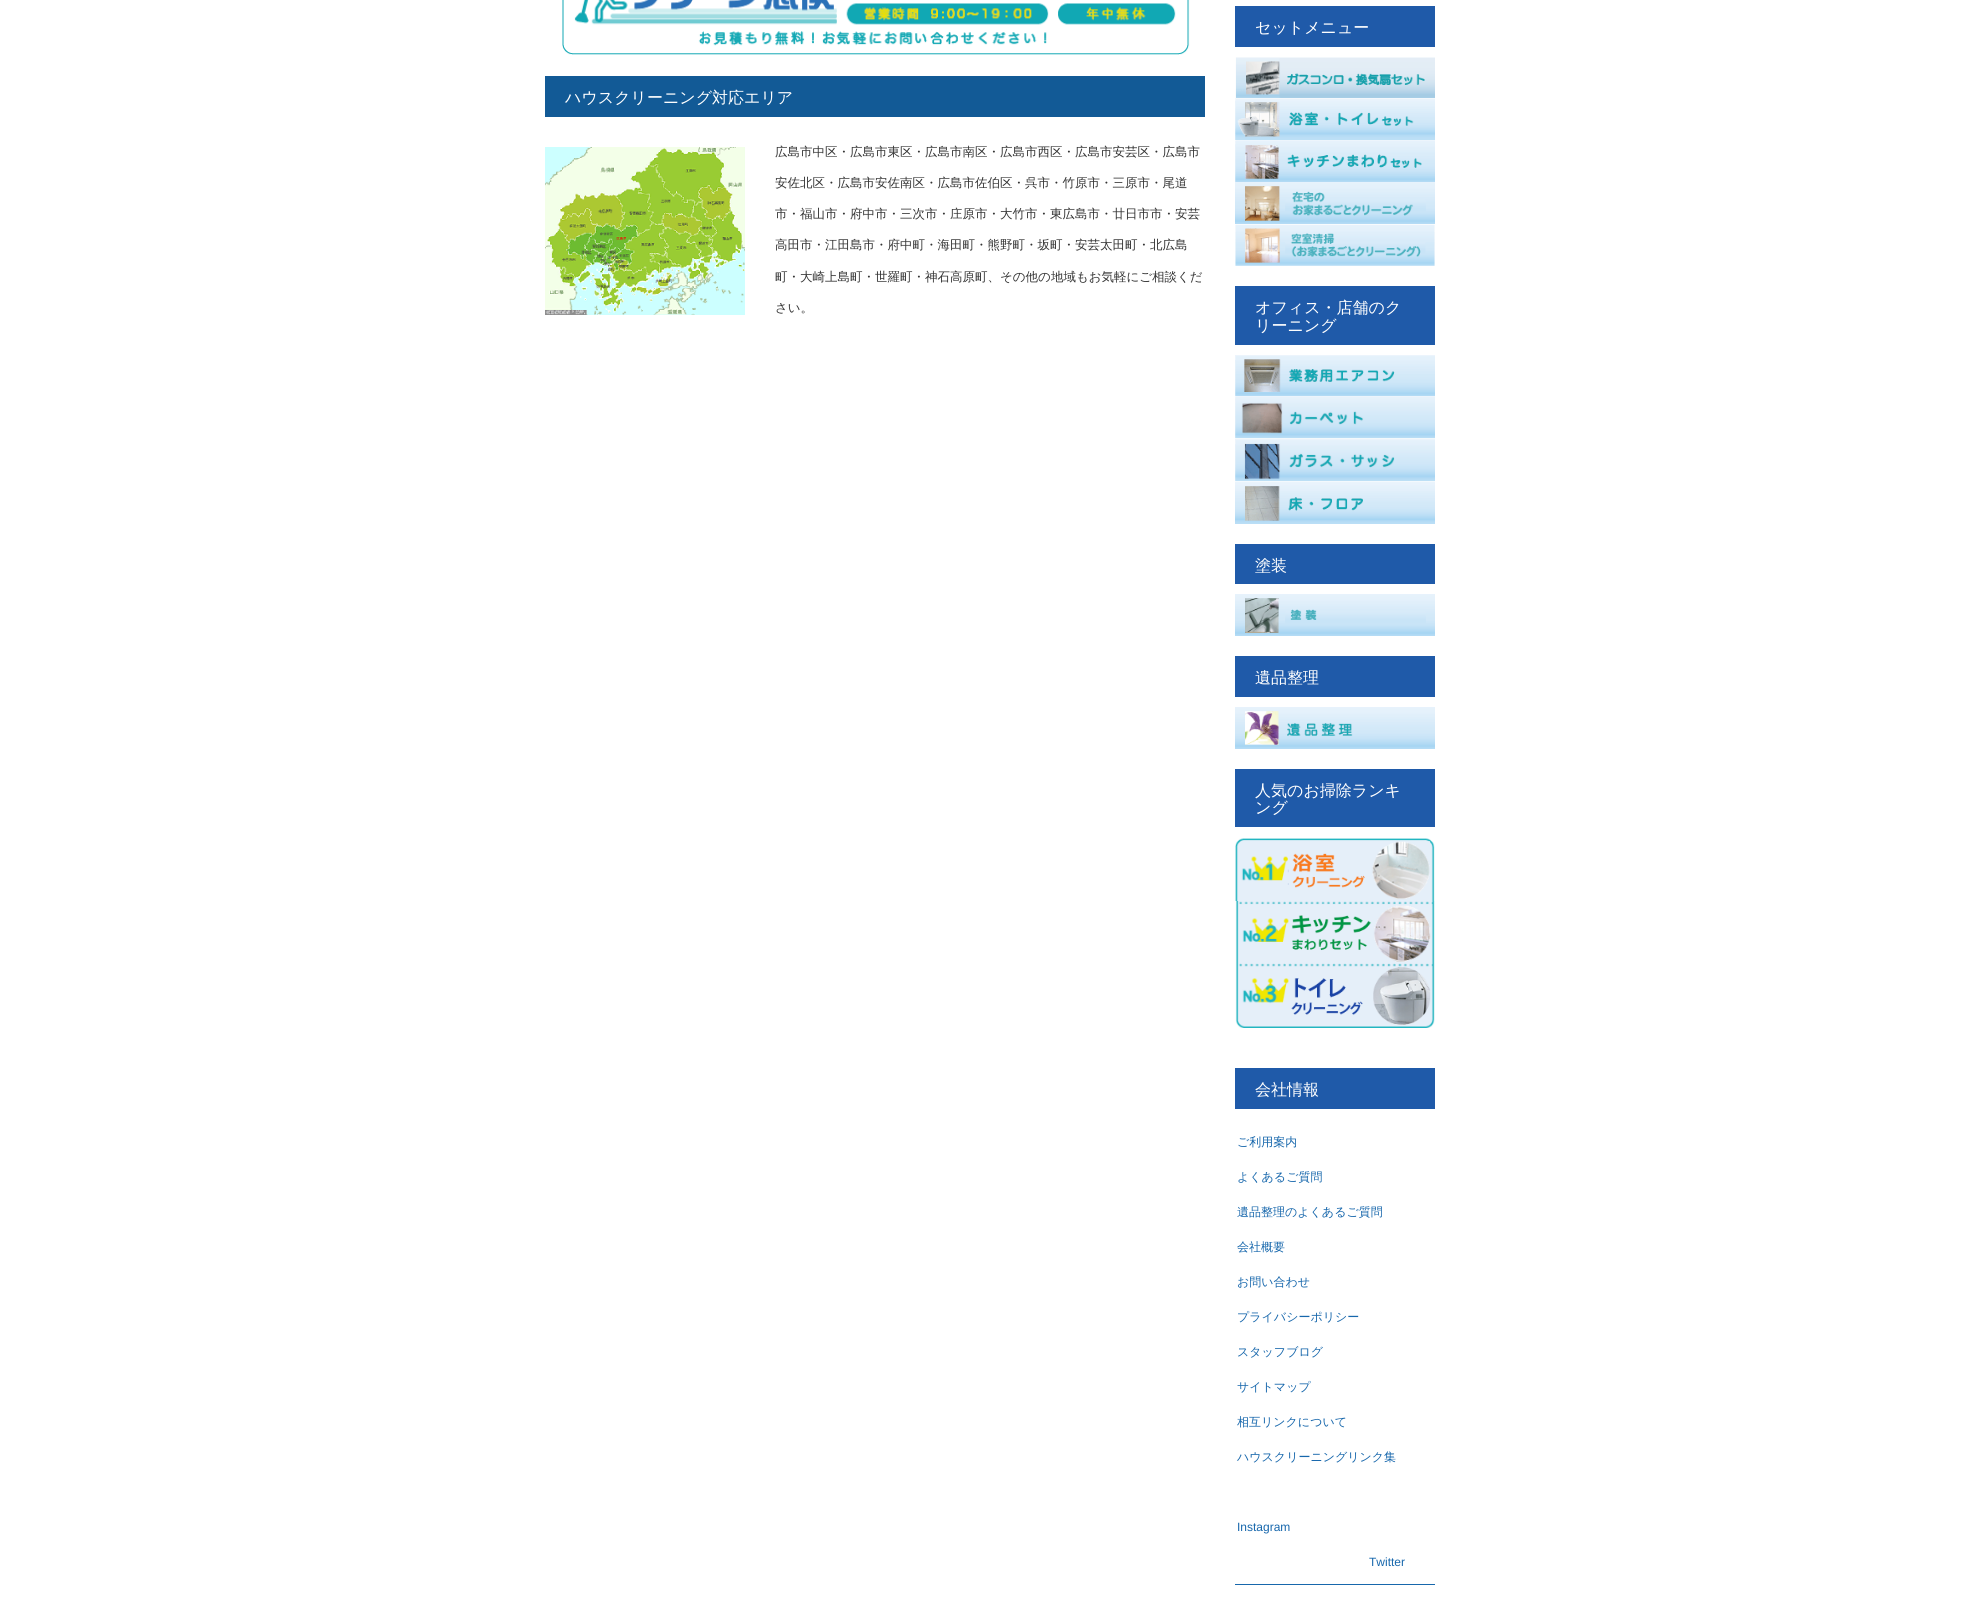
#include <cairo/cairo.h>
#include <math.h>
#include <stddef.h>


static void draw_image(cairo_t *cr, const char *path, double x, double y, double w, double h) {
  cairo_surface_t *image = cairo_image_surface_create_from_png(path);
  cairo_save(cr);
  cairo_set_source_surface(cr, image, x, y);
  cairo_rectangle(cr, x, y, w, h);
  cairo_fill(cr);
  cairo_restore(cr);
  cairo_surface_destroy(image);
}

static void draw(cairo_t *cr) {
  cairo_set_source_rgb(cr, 1, 1, 1);
  cairo_paint(cr);
  draw_image(cr, "images/1.png", 562, 0, 628, 55);
  cairo_set_source_rgb(cr, 18 / 255.0, 90 / 255.0, 150 / 255.0);
  cairo_rectangle(cr, 545, 76, 660, 41);
  cairo_fill(cr);
  draw_image(cr, "images/2.png", 545, 147, 200, 168);
  cairo_set_source_rgb(cr, 31 / 255.0, 90 / 255.0, 169 / 255.0);
  cairo_rectangle(cr, 1235, 6, 200, 41);
  cairo_fill(cr);
  draw_image(cr, "images/3.png", 1235, 57, 200, 41);
  draw_image(cr, "images/4.png", 1235, 98, 200, 42);
  draw_image(cr, "images/5.png", 1235, 140, 200, 42);
  draw_image(cr, "images/6.png", 1235, 182, 200, 42);
  draw_image(cr, "images/7.png", 1235, 224, 200, 42);
  cairo_rectangle(cr, 1235, 286, 200, 59);
  cairo_fill(cr);
  draw_image(cr, "images/8.png", 1235, 355, 200, 41);
  draw_image(cr, "images/9.png", 1235, 396, 200, 43);
  draw_image(cr, "images/10.png", 1235, 439, 200, 43);
  draw_image(cr, "images/11.png", 1235, 482, 200, 42);
  cairo_rectangle(cr, 1235, 544, 200, 40);
  cairo_fill(cr);
  draw_image(cr, "images/12.png", 1235, 594, 200, 42);
  cairo_rectangle(cr, 1235, 656, 200, 41);
  cairo_fill(cr);
  draw_image(cr, "images/13.png", 1235, 707, 200, 42);
  cairo_rectangle(cr, 1235, 769, 200, 58);
  cairo_fill(cr);
  draw_image(cr, "images/14.png", 1235, 838, 200, 63);
  draw_image(cr, "images/15.png", 1235, 901, 200, 63);
  draw_image(cr, "images/16.png", 1235, 964, 200, 64);
  cairo_rectangle(cr, 1235, 1068, 200, 41);
  cairo_fill(cr);
  cairo_set_source_rgb(cr, 23 / 255.0, 103 / 255.0, 172 / 255.0);
  cairo_rectangle(cr, 1235, 1584, 200, 1);
  cairo_fill(cr);
  cairo_select_font_face(cr, "WenQuanYi Zen Hei Medium", CAIRO_FONT_SLANT_NORMAL, CAIRO_FONT_WEIGHT_NORMAL);
  cairo_set_font_size(cr, 16);
  cairo_set_source_rgb(cr, 1, 1, 1);
  cairo_move_to(cr, 565, 103);
  cairo_show_text(cr, "ハウスクリーニング対応エリア");
  cairo_set_font_size(cr, 12.5);
  cairo_set_source_rgb(cr, 51 / 255.0, 51 / 255.0, 51 / 255.0);
  cairo_move_to(cr, 775, 156);
  cairo_show_text(cr, "広島市中区・広島市東区・広島市南区・広島市西区・広島市安芸区・広島市");
  cairo_move_to(cr, 775, 187);
  cairo_show_text(cr, "安佐北区・広島市安佐南区・広島市佐伯区・呉市・竹原市・三原市・尾道");
  cairo_move_to(cr, 775, 218);
  cairo_show_text(cr, "市・福山市・府中市・三次市・庄原市・大竹市・東広島市・廿日市市・安芸");
  cairo_move_to(cr, 775, 249);
  cairo_show_text(cr, "高田市・江田島市・府中町・海田町・熊野町・坂町・安芸太田町・北広島");
  cairo_move_to(cr, 775, 281);
  cairo_show_text(cr, "町・大崎上島町・世羅町・神石高原町、その他の地域もお気軽にご相談くだ");
  cairo_move_to(cr, 775, 312);
  cairo_show_text(cr, "さい。");
  cairo_set_font_size(cr, 16);
  cairo_set_source_rgb(cr, 1, 1, 1);
  cairo_move_to(cr, 1255, 33);
  cairo_show_text(cr, "セットメニュー");
  cairo_move_to(cr, 1255, 313);
  cairo_show_text(cr, "オフィス・店舗のク");
  cairo_move_to(cr, 1255, 331);
  cairo_show_text(cr, "リーニング");
  cairo_move_to(cr, 1255, 571);
  cairo_show_text(cr, "塗装");
  cairo_move_to(cr, 1255, 683);
  cairo_show_text(cr, "遺品整理");
  cairo_move_to(cr, 1255, 796);
  cairo_show_text(cr, "人気のお掃除ランキ");
  cairo_move_to(cr, 1255, 813);
  cairo_show_text(cr, "ング");
  cairo_move_to(cr, 1255, 1095);
  cairo_show_text(cr, "会社情報");
  cairo_set_font_size(cr, 12);
  cairo_set_source_rgb(cr, 23 / 255.0, 103 / 255.0, 172 / 255.0);
  cairo_move_to(cr, 1237, 1146);
  cairo_show_text(cr, "ご利用案内");
  cairo_move_to(cr, 1237, 1181);
  cairo_show_text(cr, "よくあるご質問");
  cairo_move_to(cr, 1237, 1216);
  cairo_show_text(cr, "遺品整理のよくあるご質問");
  cairo_move_to(cr, 1237, 1251);
  cairo_show_text(cr, "会社概要");
  cairo_move_to(cr, 1237, 1286);
  cairo_show_text(cr, "お問い合わせ");
  cairo_move_to(cr, 1237, 1321);
  cairo_show_text(cr, "プライバシーポリシー");
  cairo_move_to(cr, 1237, 1356);
  cairo_show_text(cr, "スタッフブログ");
  cairo_move_to(cr, 1237, 1391);
  cairo_show_text(cr, "サイトマップ");
  cairo_move_to(cr, 1237, 1426);
  cairo_show_text(cr, "相互リンクについて");
  cairo_move_to(cr, 1237, 1461);
  cairo_show_text(cr, "ハウスクリーニングリンク集");
  cairo_select_font_face(cr, "Liberation Sans", CAIRO_FONT_SLANT_NORMAL, CAIRO_FONT_WEIGHT_NORMAL);
  cairo_move_to(cr, 1237, 1531);
  cairo_show_text(cr, "Instagram");
  cairo_move_to(cr, 1369, 1566);
  cairo_show_text(cr, "Twitter");
}

int main(void) {
  cairo_surface_t *surface = cairo_image_surface_create(CAIRO_FORMAT_RGB24, 1979, 1616);
  cairo_t *cr = cairo_create(surface);
  cairo_font_options_t *options = cairo_font_options_create();
  cairo_font_options_set_hint_metrics(options, CAIRO_HINT_METRICS_OFF);
  cairo_font_options_set_hint_style(options, CAIRO_HINT_STYLE_NONE);
  cairo_set_font_options(cr, options);
  cairo_set_miter_limit(cr, 4);
  draw(cr);
  cairo_surface_write_to_png(surface, "out.png");
  cairo_font_options_destroy(options);
  cairo_destroy(cr);
  cairo_surface_destroy(surface);
  return 0;
}
